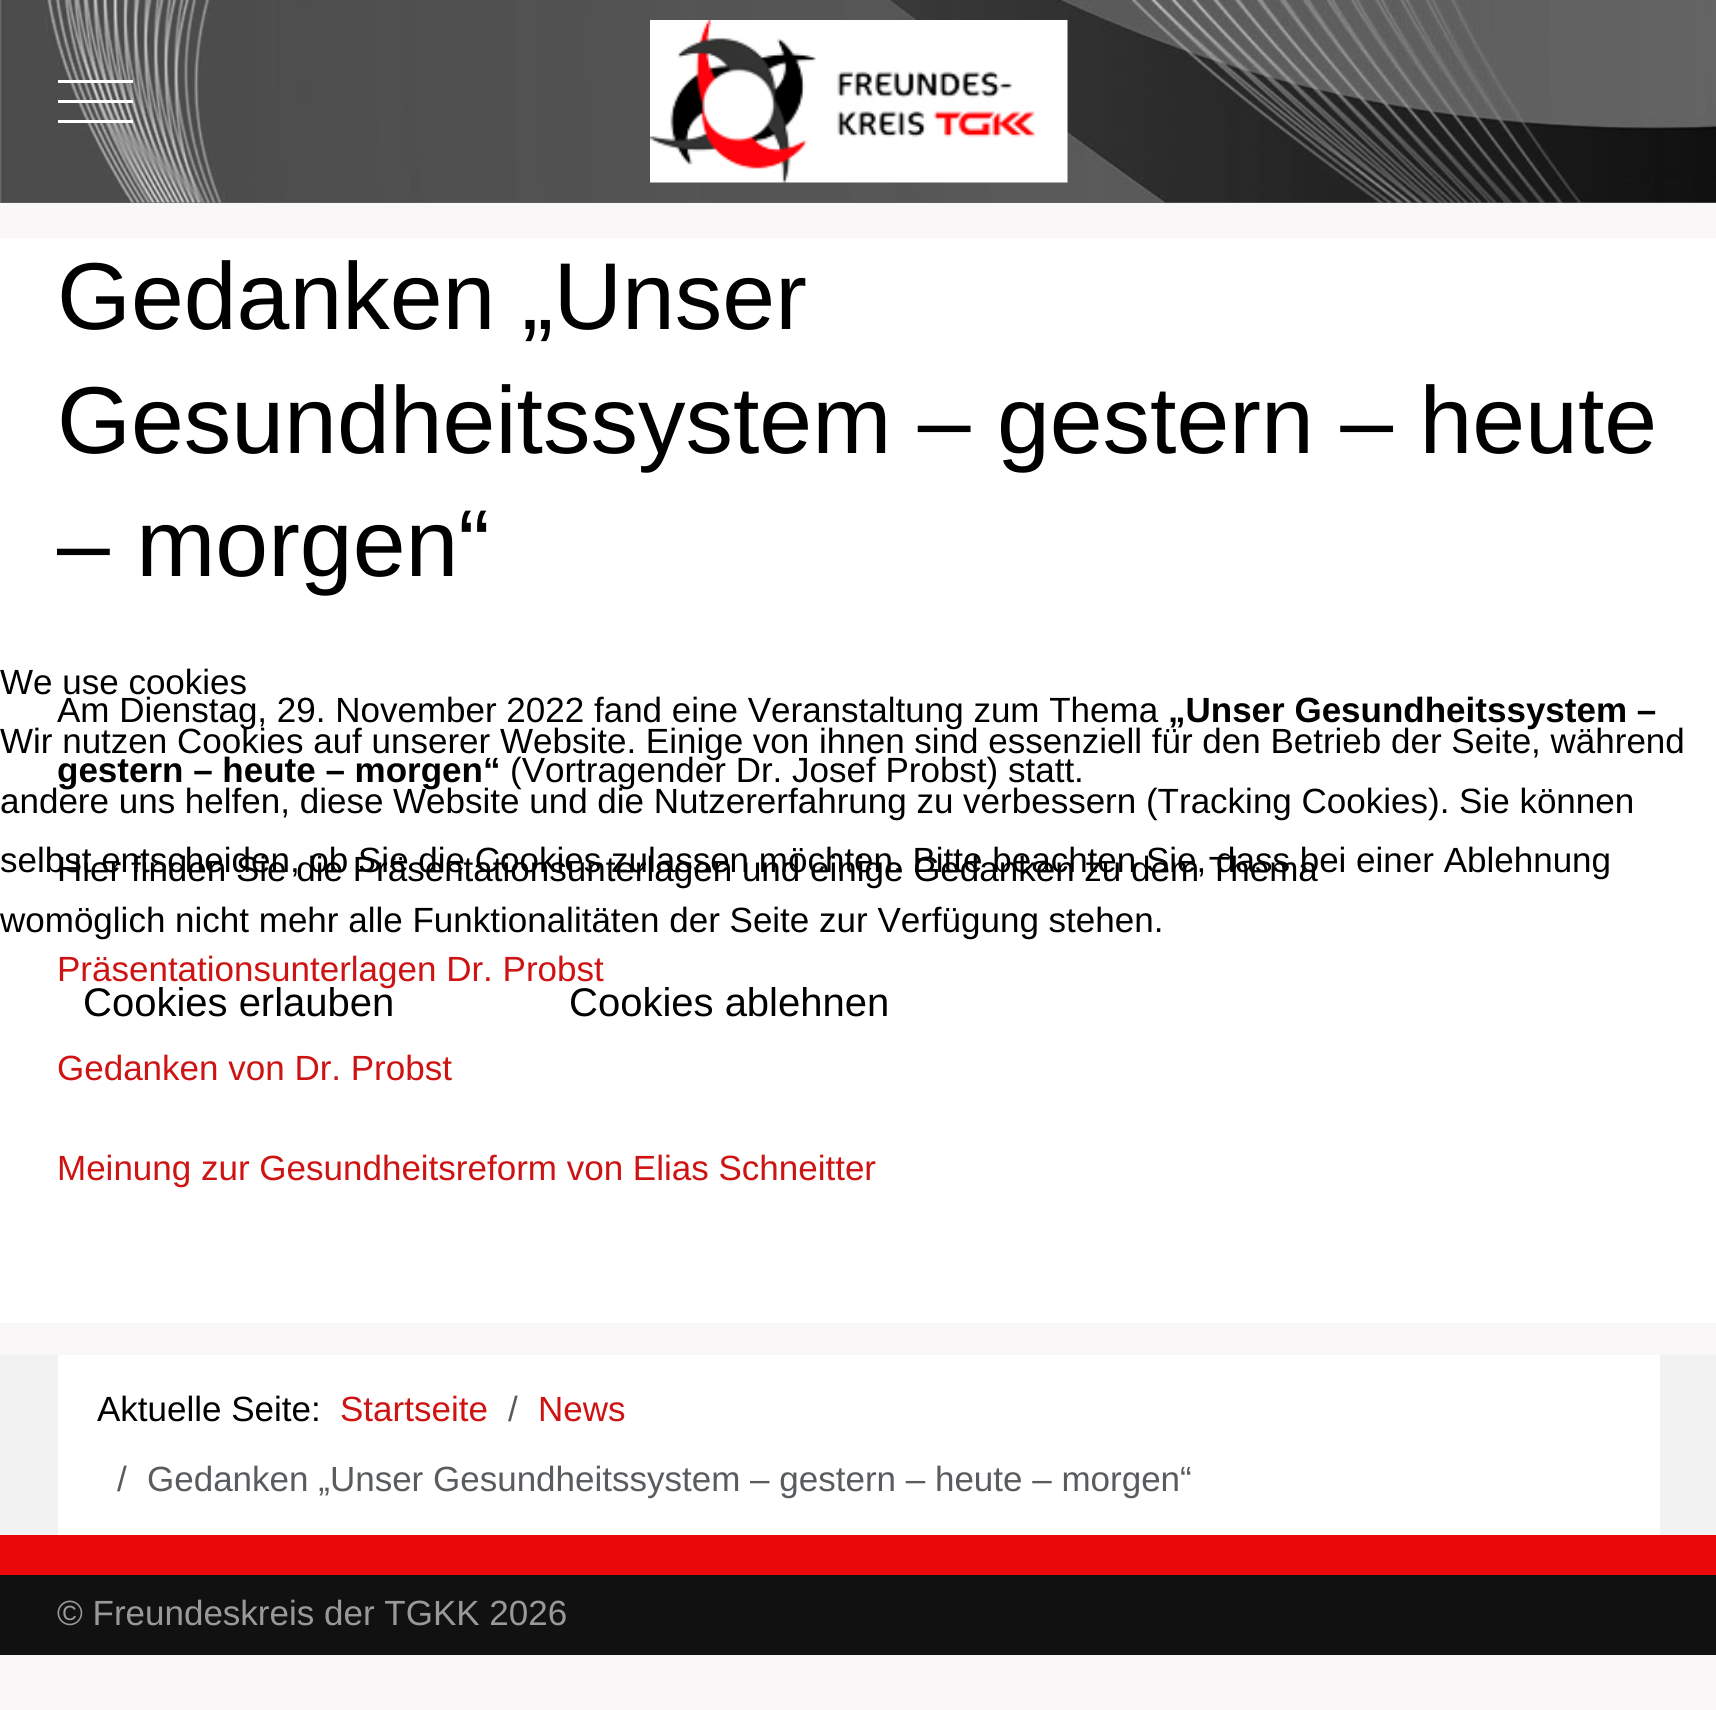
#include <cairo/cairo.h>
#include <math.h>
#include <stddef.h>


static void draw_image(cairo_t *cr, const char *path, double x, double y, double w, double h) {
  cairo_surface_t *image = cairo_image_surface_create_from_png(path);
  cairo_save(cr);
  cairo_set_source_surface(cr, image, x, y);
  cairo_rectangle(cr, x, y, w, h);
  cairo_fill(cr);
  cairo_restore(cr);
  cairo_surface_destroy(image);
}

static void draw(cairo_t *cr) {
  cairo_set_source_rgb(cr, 249 / 255.0, 247 / 255.0, 247 / 255.0);
  cairo_paint(cr);
  cairo_set_source_rgb(cr, 106 / 255.0, 105 / 255.0, 105 / 255.0);
  cairo_rectangle(cr, 0, 0, 1716, 203);
  cairo_fill(cr);
  draw_image(cr, "images/1.png", 1, 0, 1715, 203);
  cairo_set_source_rgb(cr, 1, 1, 1);
  cairo_rectangle(cr, 58, 100, 75, 3);
  cairo_fill(cr);
  cairo_rectangle(cr, 58, 80, 75, 3);
  cairo_fill(cr);
  cairo_rectangle(cr, 58, 120, 75, 3);
  cairo_fill(cr);
  draw_image(cr, "images/2.png", 650, 20, 418, 163);
  cairo_rectangle(cr, 0, 238, 1716, 1085);
  cairo_fill(cr);
  cairo_set_source_rgb(cr, 242 / 255.0, 242 / 255.0, 242 / 255.0);
  cairo_rectangle(cr, 0, 1355, 1716, 180);
  cairo_fill(cr);
  cairo_set_source_rgb(cr, 1, 1, 1);
  cairo_rectangle(cr, 58, 1355, 1602, 180);
  cairo_fill(cr);
  cairo_set_source_rgb(cr, 235 / 255.0, 8 / 255.0, 8 / 255.0);
  cairo_rectangle(cr, 0, 1535, 1716, 40);
  cairo_fill(cr);
  cairo_set_source_rgb(cr, 17 / 255.0, 17 / 255.0, 17 / 255.0);
  cairo_rectangle(cr, 0, 1575, 1716, 80);
  cairo_fill(cr);
  cairo_select_font_face(cr, "Liberation Sans", CAIRO_FONT_SLANT_NORMAL, CAIRO_FONT_WEIGHT_NORMAL);
  cairo_set_font_size(cr, 95);
  cairo_set_source_rgb(cr, 0, 0, 0);
  cairo_move_to(cr, 57, 329);
  cairo_show_text(cr, "Gedanken „Unser");
  cairo_move_to(cr, 57, 453);
  cairo_show_text(cr, "Gesundheitssystem – gestern – heute");
  cairo_move_to(cr, 57, 576);
  cairo_show_text(cr, "– morgen“");
  cairo_set_font_size(cr, 35);
  cairo_move_to(cr, 57, 722);
  cairo_show_text(cr, "Am Dienstag, 29. November 2022 fand eine Veranstaltung zum Thema");
  cairo_select_font_face(cr, "Liberation Sans", CAIRO_FONT_SLANT_NORMAL, CAIRO_FONT_WEIGHT_BOLD);
  cairo_move_to(cr, 1168, 722);
  cairo_show_text(cr, "„Unser Gesundheitssystem –");
  cairo_move_to(cr, 57, 782);
  cairo_show_text(cr, "gestern – heute – morgen“");
  cairo_select_font_face(cr, "Liberation Sans", CAIRO_FONT_SLANT_NORMAL, CAIRO_FONT_WEIGHT_NORMAL);
  cairo_move_to(cr, 510, 782);
  cairo_show_text(cr, "(Vortragender Dr. Josef Probst) statt.");
  cairo_move_to(cr, 57, 881);
  cairo_show_text(cr, "Hier finden Sie die Präsentationsunterlagen und einige Gedanken zu dem Thema");
  cairo_set_source_rgb(cr, 206 / 255.0, 19 / 255.0, 19 / 255.0);
  cairo_move_to(cr, 57, 981);
  cairo_show_text(cr, "Präsentationsunterlagen Dr. Probst");
  cairo_move_to(cr, 57, 1080);
  cairo_show_text(cr, "Gedanken von Dr. Probst");
  cairo_move_to(cr, 57, 1180);
  cairo_show_text(cr, "Meinung zur Gesundheitsreform von Elias Schneitter");
  cairo_set_source_rgb(cr, 0, 0, 0);
  cairo_move_to(cr, 97, 1421);
  cairo_show_text(cr, "Aktuelle Seite:");
  cairo_set_source_rgb(cr, 206 / 255.0, 19 / 255.0, 19 / 255.0);
  cairo_move_to(cr, 340, 1421);
  cairo_show_text(cr, "Startseite");
  cairo_set_source_rgb(cr, 89 / 255.0, 92 / 255.0, 95 / 255.0);
  cairo_move_to(cr, 508, 1421);
  cairo_show_text(cr, "/");
  cairo_set_source_rgb(cr, 206 / 255.0, 19 / 255.0, 19 / 255.0);
  cairo_move_to(cr, 538, 1421);
  cairo_show_text(cr, "News");
  cairo_set_source_rgb(cr, 89 / 255.0, 92 / 255.0, 95 / 255.0);
  cairo_move_to(cr, 117, 1491);
  cairo_show_text(cr, "/");
  cairo_move_to(cr, 147, 1491);
  cairo_show_text(cr, "Gedanken „Unser Gesundheitssystem – gestern – heute – morgen“");
  cairo_set_source_rgb(cr, 153 / 255.0, 153 / 255.0, 153 / 255.0);
  cairo_move_to(cr, 57, 1625);
  cairo_show_text(cr, "© Freundeskreis der TGKK 2026");
  cairo_set_source_rgb(cr, 0, 0, 0);
  cairo_move_to(cr, 0, 694);
  cairo_show_text(cr, "We use cookies");
  cairo_move_to(cr, 0, 753);
  cairo_show_text(cr, "Wir nutzen Cookies auf unserer Website. Einige von ihnen sind essenziell für den Betrieb der Seite, während");
  cairo_move_to(cr, 0, 813);
  cairo_show_text(cr, "andere uns helfen, diese Website und die Nutzererfahrung zu verbessern (Tracking Cookies). Sie können");
  cairo_move_to(cr, 0, 872);
  cairo_show_text(cr, "selbst entscheiden, ob Sie die Cookies zulassen möchten. Bitte beachten Sie, dass bei einer Ablehnung");
  cairo_move_to(cr, 0, 932);
  cairo_show_text(cr, "womöglich nicht mehr alle Funktionalitäten der Seite zur Verfügung stehen.");
  cairo_set_font_size(cr, 40);
  cairo_move_to(cr, 83, 1016);
  cairo_show_text(cr, "Cookies erlauben");
  cairo_move_to(cr, 569, 1016);
  cairo_show_text(cr, "Cookies ablehnen");
}

int main(void) {
  cairo_surface_t *surface = cairo_image_surface_create(CAIRO_FORMAT_RGB24, 1716, 1710);
  cairo_t *cr = cairo_create(surface);
  cairo_font_options_t *options = cairo_font_options_create();
  cairo_font_options_set_hint_metrics(options, CAIRO_HINT_METRICS_OFF);
  cairo_font_options_set_hint_style(options, CAIRO_HINT_STYLE_NONE);
  cairo_set_font_options(cr, options);
  cairo_set_miter_limit(cr, 4);
  draw(cr);
  cairo_surface_write_to_png(surface, "out.png");
  cairo_font_options_destroy(options);
  cairo_destroy(cr);
  cairo_surface_destroy(surface);
  return 0;
}
